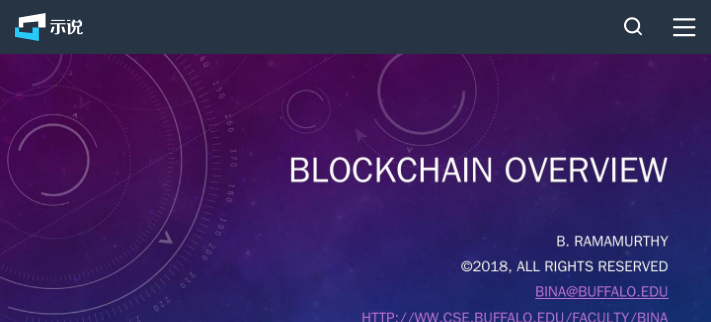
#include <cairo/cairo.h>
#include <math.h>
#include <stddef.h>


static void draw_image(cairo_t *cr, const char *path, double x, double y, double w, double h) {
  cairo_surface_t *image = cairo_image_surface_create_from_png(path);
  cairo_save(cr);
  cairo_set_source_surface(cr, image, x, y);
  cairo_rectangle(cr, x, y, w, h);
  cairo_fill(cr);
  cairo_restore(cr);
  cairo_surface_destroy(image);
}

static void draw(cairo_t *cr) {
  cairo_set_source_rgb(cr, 1, 1, 1);
  cairo_paint(cr);
  cairo_set_source_rgb(cr, 39 / 255.0, 52 / 255.0, 68 / 255.0);
  cairo_rectangle(cr, 0, 0, 711, 54);
  cairo_fill(cr);
  draw_image(cr, "images/1.png", 15, 13, 68, 28);
  draw_image(cr, "images/2.png", 624, 17, 18, 19);
  draw_image(cr, "images/3.png", 673, 18, 23, 19);
  draw_image(cr, "images/4.png", 0, 54, 711, 268);
}

int main(void) {
  cairo_surface_t *surface = cairo_image_surface_create(CAIRO_FORMAT_RGB24, 711, 322);
  cairo_t *cr = cairo_create(surface);
  cairo_font_options_t *options = cairo_font_options_create();
  cairo_font_options_set_hint_metrics(options, CAIRO_HINT_METRICS_OFF);
  cairo_font_options_set_hint_style(options, CAIRO_HINT_STYLE_NONE);
  cairo_set_font_options(cr, options);
  cairo_set_miter_limit(cr, 4);
  draw(cr);
  cairo_surface_write_to_png(surface, "out.png");
  cairo_font_options_destroy(options);
  cairo_destroy(cr);
  cairo_surface_destroy(surface);
  return 0;
}
